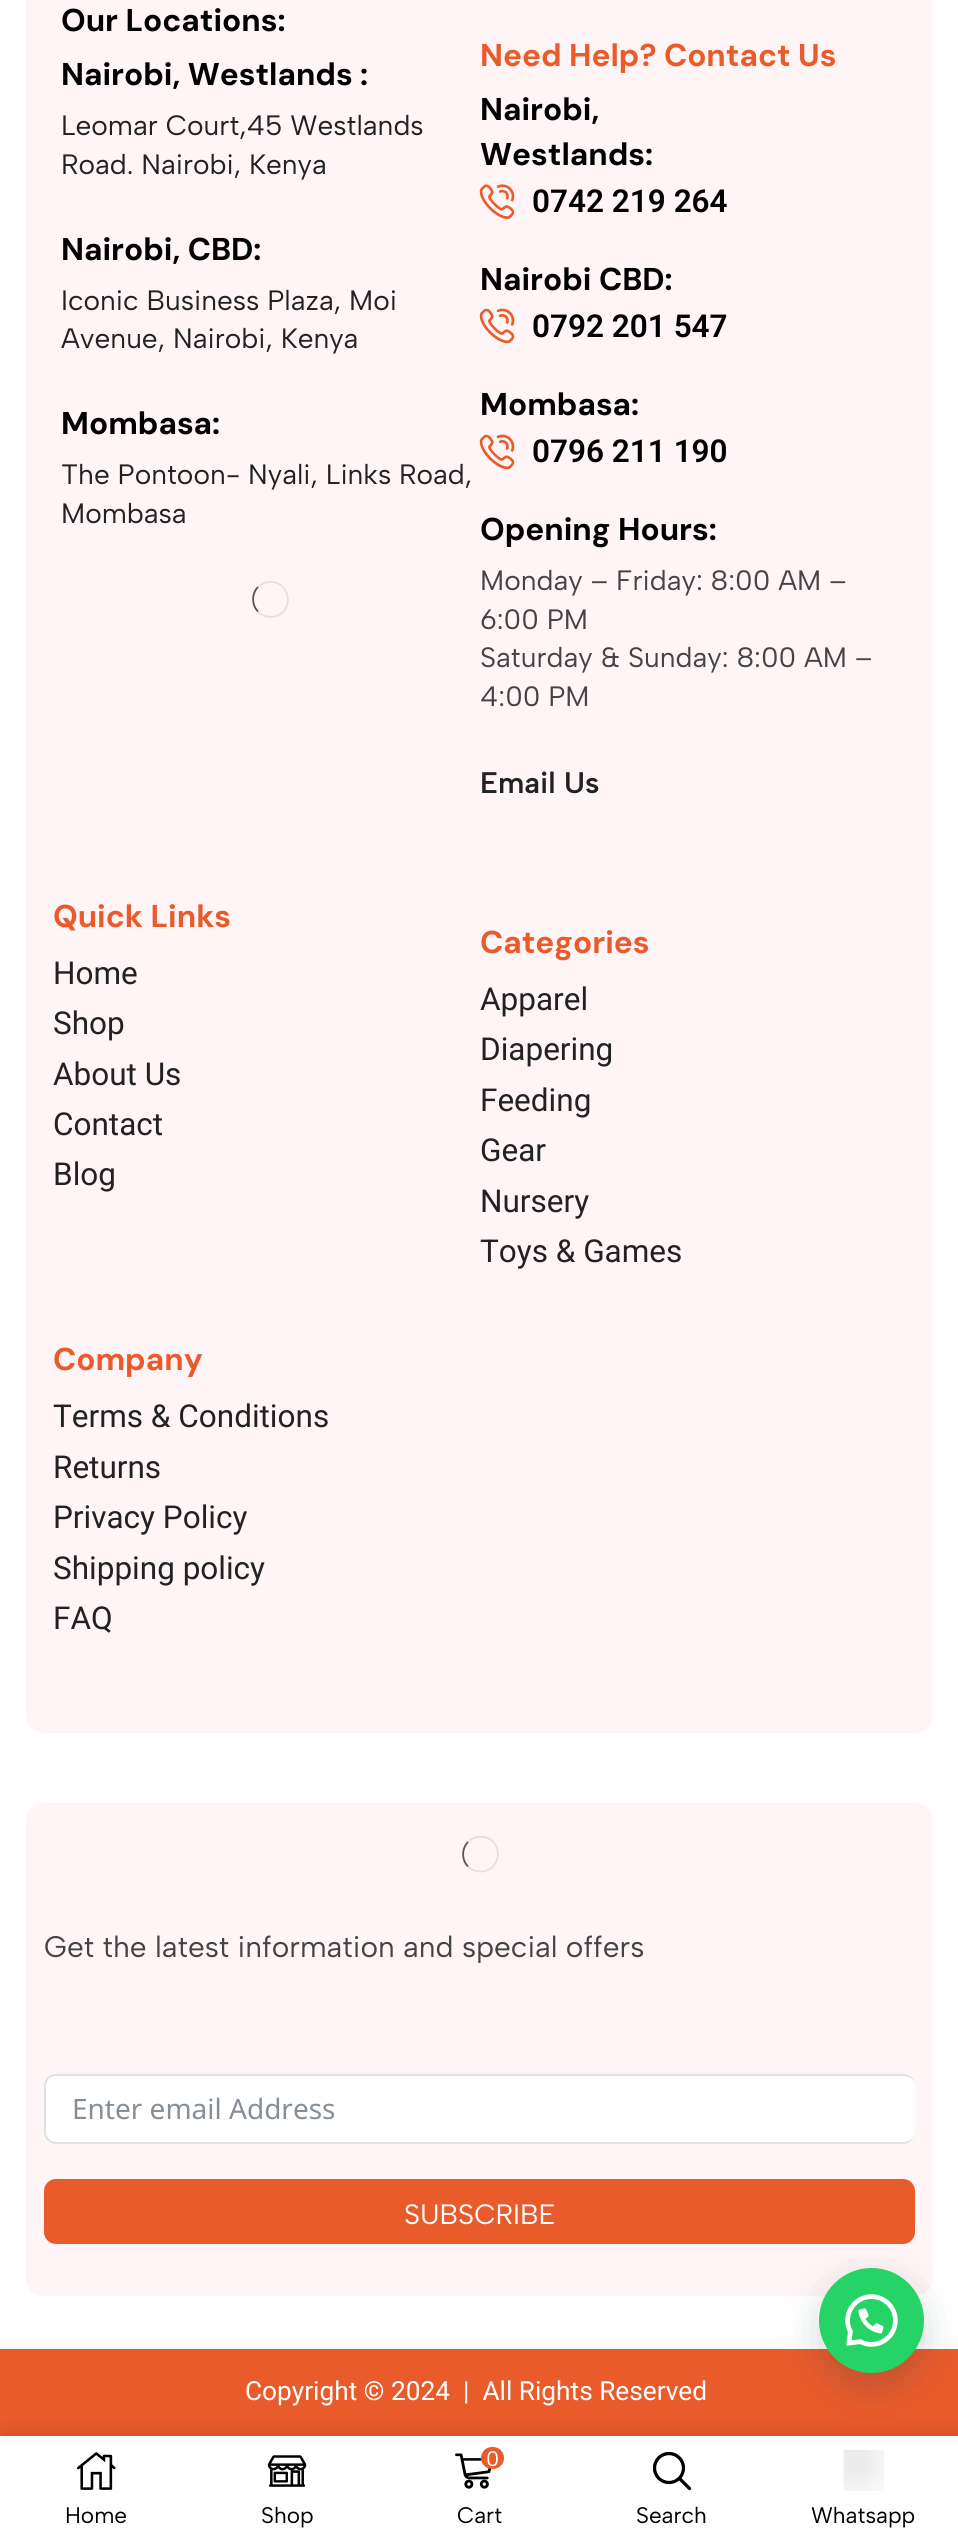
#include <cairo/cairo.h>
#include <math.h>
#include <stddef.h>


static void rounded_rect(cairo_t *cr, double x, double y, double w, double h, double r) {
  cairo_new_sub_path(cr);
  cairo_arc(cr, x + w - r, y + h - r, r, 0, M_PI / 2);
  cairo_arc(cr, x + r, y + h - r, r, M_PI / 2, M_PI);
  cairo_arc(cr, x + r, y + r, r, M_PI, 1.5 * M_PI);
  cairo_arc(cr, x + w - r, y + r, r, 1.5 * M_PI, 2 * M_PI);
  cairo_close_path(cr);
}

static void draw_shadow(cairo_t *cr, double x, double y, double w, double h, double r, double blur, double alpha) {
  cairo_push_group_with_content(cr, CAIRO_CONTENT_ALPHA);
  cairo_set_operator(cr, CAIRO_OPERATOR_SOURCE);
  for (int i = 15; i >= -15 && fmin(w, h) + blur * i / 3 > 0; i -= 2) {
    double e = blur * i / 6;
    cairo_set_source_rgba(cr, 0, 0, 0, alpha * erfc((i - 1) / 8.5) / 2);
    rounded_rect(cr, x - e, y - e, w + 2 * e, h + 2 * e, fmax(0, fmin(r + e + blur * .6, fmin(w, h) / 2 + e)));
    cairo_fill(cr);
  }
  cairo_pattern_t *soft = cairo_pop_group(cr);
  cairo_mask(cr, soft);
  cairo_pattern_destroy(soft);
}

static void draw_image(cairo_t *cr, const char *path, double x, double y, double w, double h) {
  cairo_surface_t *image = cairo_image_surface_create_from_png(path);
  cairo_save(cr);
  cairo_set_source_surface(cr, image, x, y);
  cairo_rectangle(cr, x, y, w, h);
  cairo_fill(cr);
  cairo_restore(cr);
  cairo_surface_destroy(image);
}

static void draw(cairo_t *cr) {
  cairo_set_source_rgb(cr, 1, 1, 1);
  cairo_paint(cr);
  cairo_set_source_rgb(cr, 1, 244 / 255.0, 246 / 255.0);
  rounded_rect(cr, 26, -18, 907, 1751, 18);
  cairo_fill(cr);
  cairo_new_path(cr);
  cairo_move_to(cr, 258, 587);
  cairo_curve_to(cr, 261.5, 583.5, 266, 582, 270.5, 582);
  cairo_curve_to(cr, 291.5, 582, 294.5, 612.5, 274, 616.5);
  cairo_curve_to(cr, 268, 617.5, 262, 616, 258, 611.5);
  cairo_set_source_rgb(cr, 225 / 255.0, 225 / 255.0, 225 / 255.0);
  cairo_set_line_width(cr, 1.8);
  cairo_stroke(cr);
  cairo_new_path(cr);
  cairo_move_to(cr, 258, 611.5);
  cairo_curve_to(cr, 251.5, 605, 251.5, 593.5, 258, 587);
  cairo_set_source_rgb(cr, 85 / 255.0, 85 / 255.0, 85 / 255.0);
  cairo_stroke(cr);
  draw_image(cr, "images/1.png", 479, 184, 36, 35);
  draw_image(cr, "images/2.png", 479, 308, 36, 36);
  draw_image(cr, "images/2.png", 479, 434, 36, 36);
  cairo_set_source_rgb(cr, 1, 244 / 255.0, 246 / 255.0);
  rounded_rect(cr, 26, 1803, 907, 493, 18);
  cairo_fill(cr);
  cairo_new_path(cr);
  cairo_move_to(cr, 468, 1842);
  cairo_curve_to(cr, 472, 1837.5, 478, 1836, 484, 1837);
  cairo_curve_to(cr, 504.5, 1841, 501.5, 1871.5, 480.5, 1871.5);
  cairo_curve_to(cr, 476, 1871.5, 471.5, 1870, 468, 1866.5);
  cairo_set_source_rgb(cr, 225 / 255.0, 225 / 255.0, 225 / 255.0);
  cairo_stroke(cr);
  cairo_new_path(cr);
  cairo_move_to(cr, 468, 1866.5);
  cairo_curve_to(cr, 461.5, 1860, 461.5, 1848.5, 468, 1842);
  cairo_set_source_rgb(cr, 85 / 255.0, 85 / 255.0, 85 / 255.0);
  cairo_stroke(cr);
  cairo_set_source_rgb(cr, 1, 1, 1);
  cairo_new_path(cr);
  cairo_move_to(cr, 56, 2076);
  cairo_line_to(cr, 903, 2076);
  cairo_curve_to(cr, 910, 2076, 915, 2080, 915, 2086);
  cairo_line_to(cr, 915, 2132);
  cairo_curve_to(cr, 915, 2137, 910, 2142, 903, 2142);
  cairo_line_to(cr, 56, 2142);
  cairo_curve_to(cr, 50, 2142, 46, 2137, 46, 2132);
  cairo_line_to(cr, 46, 2086);
  cairo_curve_to(cr, 46, 2080, 50, 2076, 56, 2076);
  cairo_close_path(cr);
  cairo_fill(cr);
  cairo_set_source_rgb(cr, 225 / 255.0, 225 / 255.0, 225 / 255.0);
  cairo_set_fill_rule(cr, CAIRO_FILL_RULE_EVEN_ODD);
  cairo_new_path(cr);
  cairo_move_to(cr, 56, 2074);
  cairo_line_to(cr, 903, 2074);
  cairo_curve_to(cr, 910, 2074, 915, 2079, 915, 2086);
  cairo_line_to(cr, 915, 2132);
  cairo_curve_to(cr, 915, 2138, 910, 2144, 903, 2144);
  cairo_line_to(cr, 56, 2144);
  cairo_curve_to(cr, 49, 2144, 44, 2138, 44, 2132);
  cairo_line_to(cr, 44, 2086);
  cairo_curve_to(cr, 44, 2079, 49, 2074, 56, 2074);
  cairo_close_path(cr);
  cairo_move_to(cr, 56, 2076);
  cairo_line_to(cr, 903, 2076);
  cairo_curve_to(cr, 910, 2076, 915, 2080, 915, 2086);
  cairo_line_to(cr, 915, 2132);
  cairo_curve_to(cr, 915, 2137, 910, 2142, 903, 2142);
  cairo_line_to(cr, 56, 2142);
  cairo_curve_to(cr, 50, 2142, 46, 2137, 46, 2132);
  cairo_line_to(cr, 46, 2086);
  cairo_curve_to(cr, 46, 2080, 50, 2076, 56, 2076);
  cairo_close_path(cr);
  cairo_fill(cr);
  cairo_set_source_rgb(cr, 233 / 255.0, 91 / 255.0, 43 / 255.0);
  rounded_rect(cr, 44, 2179, 871, 65, 12);
  cairo_fill(cr);
  cairo_rectangle(cr, 0, 2349, 958, 87);
  cairo_fill(cr);
  cairo_set_source_rgb(cr, 0, 0, 0);
  draw_shadow(cr, 4, 2436, 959, 112, 0, 10.5, 0.15);
  cairo_set_source_rgb(cr, 1, 1, 1);
  cairo_rectangle(cr, 0, 2436, 958, 112);
  cairo_fill(cr);
  cairo_set_source_rgb(cr, 45 / 255.0, 62 / 255.0, 79 / 255.0);
  draw_shadow(cr, 828, 2291, 87, 87, 43.5, 22, 0.3);
  cairo_set_source_rgb(cr, 37 / 255.0, 211 / 255.0, 102 / 255.0);
  cairo_arc(cr, 871.5, 2320.5, 52.5, 0, 2 * M_PI);
  cairo_fill(cr);
  draw_image(cr, "images/3.png", 845, 2294, 53, 53);
  draw_image(cr, "images/4.png", 77, 2452, 39, 38);
  draw_image(cr, "images/5.png", 267, 2455, 40, 32);
  draw_image(cr, "images/6.png", 455, 2453, 37, 36);
  cairo_set_source_rgb(cr, 233 / 255.0, 91 / 255.0, 43 / 255.0);
  rounded_rect(cr, 481, 2447, 23, 22, 11);
  cairo_fill(cr);
  draw_image(cr, "images/7.png", 652, 2451, 40, 40);
  draw_image(cr, "images/8.png", 843, 2450, 41, 41);
  cairo_select_font_face(cr, "DM Sans", CAIRO_FONT_SLANT_NORMAL, CAIRO_FONT_WEIGHT_BOLD);
  cairo_set_font_size(cr, 31.5);
  cairo_set_source_rgb(cr, 0, 0, 0);
  cairo_move_to(cr, 61, 31);
  cairo_show_text(cr, "Our Locations:");
  cairo_move_to(cr, 61, 85);
  cairo_show_text(cr, "Nairobi, Westlands :");
  cairo_select_font_face(cr, "Albert Sans", CAIRO_FONT_SLANT_NORMAL, CAIRO_FONT_WEIGHT_NORMAL);
  cairo_set_font_size(cr, 28);
  cairo_set_source_rgb(cr, 34 / 255.0, 34 / 255.0, 34 / 255.0);
  cairo_move_to(cr, 61, 135);
  cairo_show_text(cr, "Leomar Court,45 Westlands");
  cairo_move_to(cr, 61, 174);
  cairo_show_text(cr, "Road. Nairobi, Kenya");
  cairo_select_font_face(cr, "DM Sans", CAIRO_FONT_SLANT_NORMAL, CAIRO_FONT_WEIGHT_BOLD);
  cairo_set_font_size(cr, 31.5);
  cairo_set_source_rgb(cr, 0, 0, 0);
  cairo_move_to(cr, 61, 260);
  cairo_show_text(cr, "Nairobi, CBD:");
  cairo_select_font_face(cr, "Albert Sans", CAIRO_FONT_SLANT_NORMAL, CAIRO_FONT_WEIGHT_NORMAL);
  cairo_set_font_size(cr, 28);
  cairo_set_source_rgb(cr, 34 / 255.0, 34 / 255.0, 34 / 255.0);
  cairo_move_to(cr, 61, 310);
  cairo_show_text(cr, "Iconic Business Plaza, Moi");
  cairo_move_to(cr, 61, 348);
  cairo_show_text(cr, "Avenue, Nairobi, Kenya");
  cairo_select_font_face(cr, "DM Sans", CAIRO_FONT_SLANT_NORMAL, CAIRO_FONT_WEIGHT_BOLD);
  cairo_set_font_size(cr, 31.5);
  cairo_set_source_rgb(cr, 0, 0, 0);
  cairo_move_to(cr, 61, 434);
  cairo_show_text(cr, "Mombasa:");
  cairo_select_font_face(cr, "Albert Sans", CAIRO_FONT_SLANT_NORMAL, CAIRO_FONT_WEIGHT_NORMAL);
  cairo_set_font_size(cr, 28);
  cairo_set_source_rgb(cr, 34 / 255.0, 34 / 255.0, 34 / 255.0);
  cairo_move_to(cr, 61, 484);
  cairo_show_text(cr, "The Pontoon- Nyali, Links Road,");
  cairo_move_to(cr, 61, 523);
  cairo_show_text(cr, "Mombasa");
  cairo_select_font_face(cr, "DM Sans", CAIRO_FONT_SLANT_NORMAL, CAIRO_FONT_WEIGHT_BOLD);
  cairo_set_font_size(cr, 31.5);
  cairo_set_source_rgb(cr, 233 / 255.0, 91 / 255.0, 43 / 255.0);
  cairo_move_to(cr, 480, 66);
  cairo_show_text(cr, "Need Help? Contact Us");
  cairo_set_source_rgb(cr, 0, 0, 0);
  cairo_move_to(cr, 480, 120);
  cairo_show_text(cr, "Nairobi,");
  cairo_move_to(cr, 480, 165);
  cairo_show_text(cr, "Westlands:");
  cairo_select_font_face(cr, "Roboto SemiBold", CAIRO_FONT_SLANT_NORMAL, CAIRO_FONT_WEIGHT_NORMAL);
  cairo_move_to(cr, 532, 212);
  cairo_show_text(cr, "0742 219 264");
  cairo_select_font_face(cr, "DM Sans", CAIRO_FONT_SLANT_NORMAL, CAIRO_FONT_WEIGHT_BOLD);
  cairo_move_to(cr, 480, 290);
  cairo_show_text(cr, "Nairobi CBD:");
  cairo_select_font_face(cr, "Roboto SemiBold", CAIRO_FONT_SLANT_NORMAL, CAIRO_FONT_WEIGHT_NORMAL);
  cairo_move_to(cr, 532, 337);
  cairo_show_text(cr, "0792 201 547");
  cairo_select_font_face(cr, "DM Sans", CAIRO_FONT_SLANT_NORMAL, CAIRO_FONT_WEIGHT_BOLD);
  cairo_move_to(cr, 480, 415);
  cairo_show_text(cr, "Mombasa:");
  cairo_select_font_face(cr, "Roboto SemiBold", CAIRO_FONT_SLANT_NORMAL, CAIRO_FONT_WEIGHT_NORMAL);
  cairo_move_to(cr, 532, 462);
  cairo_show_text(cr, "0796 211 190");
  cairo_select_font_face(cr, "DM Sans", CAIRO_FONT_SLANT_NORMAL, CAIRO_FONT_WEIGHT_BOLD);
  cairo_move_to(cr, 480, 540);
  cairo_show_text(cr, "Opening Hours:");
  cairo_select_font_face(cr, "Albert Sans", CAIRO_FONT_SLANT_NORMAL, CAIRO_FONT_WEIGHT_NORMAL);
  cairo_set_font_size(cr, 28);
  cairo_set_source_rgb(cr, 68 / 255.0, 68 / 255.0, 68 / 255.0);
  cairo_move_to(cr, 480, 590);
  cairo_show_text(cr, "Monday – Friday: 8:00 AM –");
  cairo_move_to(cr, 480, 629);
  cairo_show_text(cr, "6:00 PM");
  cairo_move_to(cr, 480, 667);
  cairo_show_text(cr, "Saturday & Sunday: 8:00 AM –");
  cairo_move_to(cr, 480, 706);
  cairo_show_text(cr, "4:00 PM");
  cairo_select_font_face(cr, "Albert Sans SemiBold", CAIRO_FONT_SLANT_NORMAL, CAIRO_FONT_WEIGHT_NORMAL);
  cairo_set_font_size(cr, 29.75);
  cairo_set_source_rgb(cr, 34 / 255.0, 34 / 255.0, 34 / 255.0);
  cairo_move_to(cr, 480, 793);
  cairo_show_text(cr, "Email Us");
  cairo_select_font_face(cr, "DM Sans", CAIRO_FONT_SLANT_NORMAL, CAIRO_FONT_WEIGHT_BOLD);
  cairo_set_font_size(cr, 31.5);
  cairo_set_source_rgb(cr, 233 / 255.0, 91 / 255.0, 43 / 255.0);
  cairo_move_to(cr, 53, 927);
  cairo_show_text(cr, "Quick Links");
  cairo_select_font_face(cr, "Roboto", CAIRO_FONT_SLANT_NORMAL, CAIRO_FONT_WEIGHT_NORMAL);
  cairo_set_source_rgb(cr, 34 / 255.0, 34 / 255.0, 34 / 255.0);
  cairo_move_to(cr, 53, 984);
  cairo_show_text(cr, "Home");
  cairo_move_to(cr, 53, 1034);
  cairo_show_text(cr, "Shop");
  cairo_move_to(cr, 53, 1085);
  cairo_show_text(cr, "About Us");
  cairo_move_to(cr, 53, 1135);
  cairo_show_text(cr, "Contact");
  cairo_move_to(cr, 53, 1185);
  cairo_show_text(cr, "Blog");
  cairo_select_font_face(cr, "DM Sans", CAIRO_FONT_SLANT_NORMAL, CAIRO_FONT_WEIGHT_BOLD);
  cairo_set_source_rgb(cr, 233 / 255.0, 91 / 255.0, 43 / 255.0);
  cairo_move_to(cr, 480, 953);
  cairo_show_text(cr, "Categories");
  cairo_select_font_face(cr, "Roboto", CAIRO_FONT_SLANT_NORMAL, CAIRO_FONT_WEIGHT_NORMAL);
  cairo_set_source_rgb(cr, 34 / 255.0, 34 / 255.0, 34 / 255.0);
  cairo_move_to(cr, 480, 1010);
  cairo_show_text(cr, "Apparel");
  cairo_move_to(cr, 480, 1060);
  cairo_show_text(cr, "Diapering");
  cairo_move_to(cr, 480, 1111);
  cairo_show_text(cr, "Feeding");
  cairo_move_to(cr, 480, 1161);
  cairo_show_text(cr, "Gear");
  cairo_move_to(cr, 480, 1212);
  cairo_show_text(cr, "Nursery");
  cairo_move_to(cr, 480, 1262);
  cairo_show_text(cr, "Toys & Games");
  cairo_select_font_face(cr, "DM Sans", CAIRO_FONT_SLANT_NORMAL, CAIRO_FONT_WEIGHT_BOLD);
  cairo_set_source_rgb(cr, 233 / 255.0, 91 / 255.0, 43 / 255.0);
  cairo_move_to(cr, 53, 1370);
  cairo_show_text(cr, "Company");
  cairo_select_font_face(cr, "Roboto", CAIRO_FONT_SLANT_NORMAL, CAIRO_FONT_WEIGHT_NORMAL);
  cairo_set_source_rgb(cr, 34 / 255.0, 34 / 255.0, 34 / 255.0);
  cairo_move_to(cr, 53, 1427);
  cairo_show_text(cr, "Terms & Conditions");
  cairo_move_to(cr, 53, 1478);
  cairo_show_text(cr, "Returns");
  cairo_move_to(cr, 53, 1528);
  cairo_show_text(cr, "Privacy Policy");
  cairo_move_to(cr, 53, 1579);
  cairo_show_text(cr, "Shipping policy");
  cairo_move_to(cr, 53, 1629);
  cairo_show_text(cr, "FAQ");
  cairo_select_font_face(cr, "Albert Sans", CAIRO_FONT_SLANT_NORMAL, CAIRO_FONT_WEIGHT_NORMAL);
  cairo_set_font_size(cr, 29.75);
  cairo_set_source_rgb(cr, 68 / 255.0, 68 / 255.0, 68 / 255.0);
  cairo_move_to(cr, 44, 1957);
  cairo_show_text(cr, "Get the latest information and special offers");
  cairo_select_font_face(cr, "Noto Sans", CAIRO_FONT_SLANT_NORMAL, CAIRO_FONT_WEIGHT_NORMAL);
  cairo_set_font_size(cr, 28);
  cairo_set_source_rgb(cr, 134 / 255.0, 142 / 255.0, 150 / 255.0);
  cairo_move_to(cr, 72, 2119);
  cairo_show_text(cr, "Enter email Address");
  cairo_select_font_face(cr, "Albert Sans", CAIRO_FONT_SLANT_NORMAL, CAIRO_FONT_WEIGHT_NORMAL);
  cairo_set_source_rgb(cr, 1, 1, 1);
  cairo_move_to(cr, 404, 2224);
  cairo_show_text(cr, "SUBSCRIBE");
  cairo_select_font_face(cr, "Roboto", CAIRO_FONT_SLANT_NORMAL, CAIRO_FONT_WEIGHT_NORMAL);
  cairo_set_font_size(cr, 26.25);
  cairo_move_to(cr, 245, 2400);
  cairo_show_text(cr, "Copyright © 2024  |  All Rights Reserved");
  cairo_select_font_face(cr, "Albert Sans", CAIRO_FONT_SLANT_NORMAL, CAIRO_FONT_WEIGHT_NORMAL);
  cairo_set_font_size(cr, 22.5);
  cairo_set_source_rgb(cr, 0, 0, 0);
  cairo_move_to(cr, 65, 2523);
  cairo_show_text(cr, "Home");
  cairo_move_to(cr, 261, 2523);
  cairo_show_text(cr, "Shop");
  cairo_set_font_size(cr, 21);
  cairo_set_source_rgb(cr, 1, 1, 1);
  cairo_move_to(cr, 486, 2466);
  cairo_show_text(cr, "0");
  cairo_set_font_size(cr, 22.5);
  cairo_set_source_rgb(cr, 0, 0, 0);
  cairo_move_to(cr, 457, 2523);
  cairo_show_text(cr, "Cart");
  cairo_move_to(cr, 636, 2523);
  cairo_show_text(cr, "Search");
  cairo_move_to(cr, 811, 2523);
  cairo_show_text(cr, "Whatsapp");
}

int main(void) {
  cairo_surface_t *surface = cairo_image_surface_create(CAIRO_FORMAT_RGB24, 958, 2548);
  cairo_t *cr = cairo_create(surface);
  cairo_font_options_t *options = cairo_font_options_create();
  cairo_font_options_set_hint_metrics(options, CAIRO_HINT_METRICS_OFF);
  cairo_font_options_set_hint_style(options, CAIRO_HINT_STYLE_NONE);
  cairo_set_font_options(cr, options);
  cairo_set_miter_limit(cr, 4);
  draw(cr);
  cairo_surface_write_to_png(surface, "out.png");
  cairo_font_options_destroy(options);
  cairo_destroy(cr);
  cairo_surface_destroy(surface);
  return 0;
}
